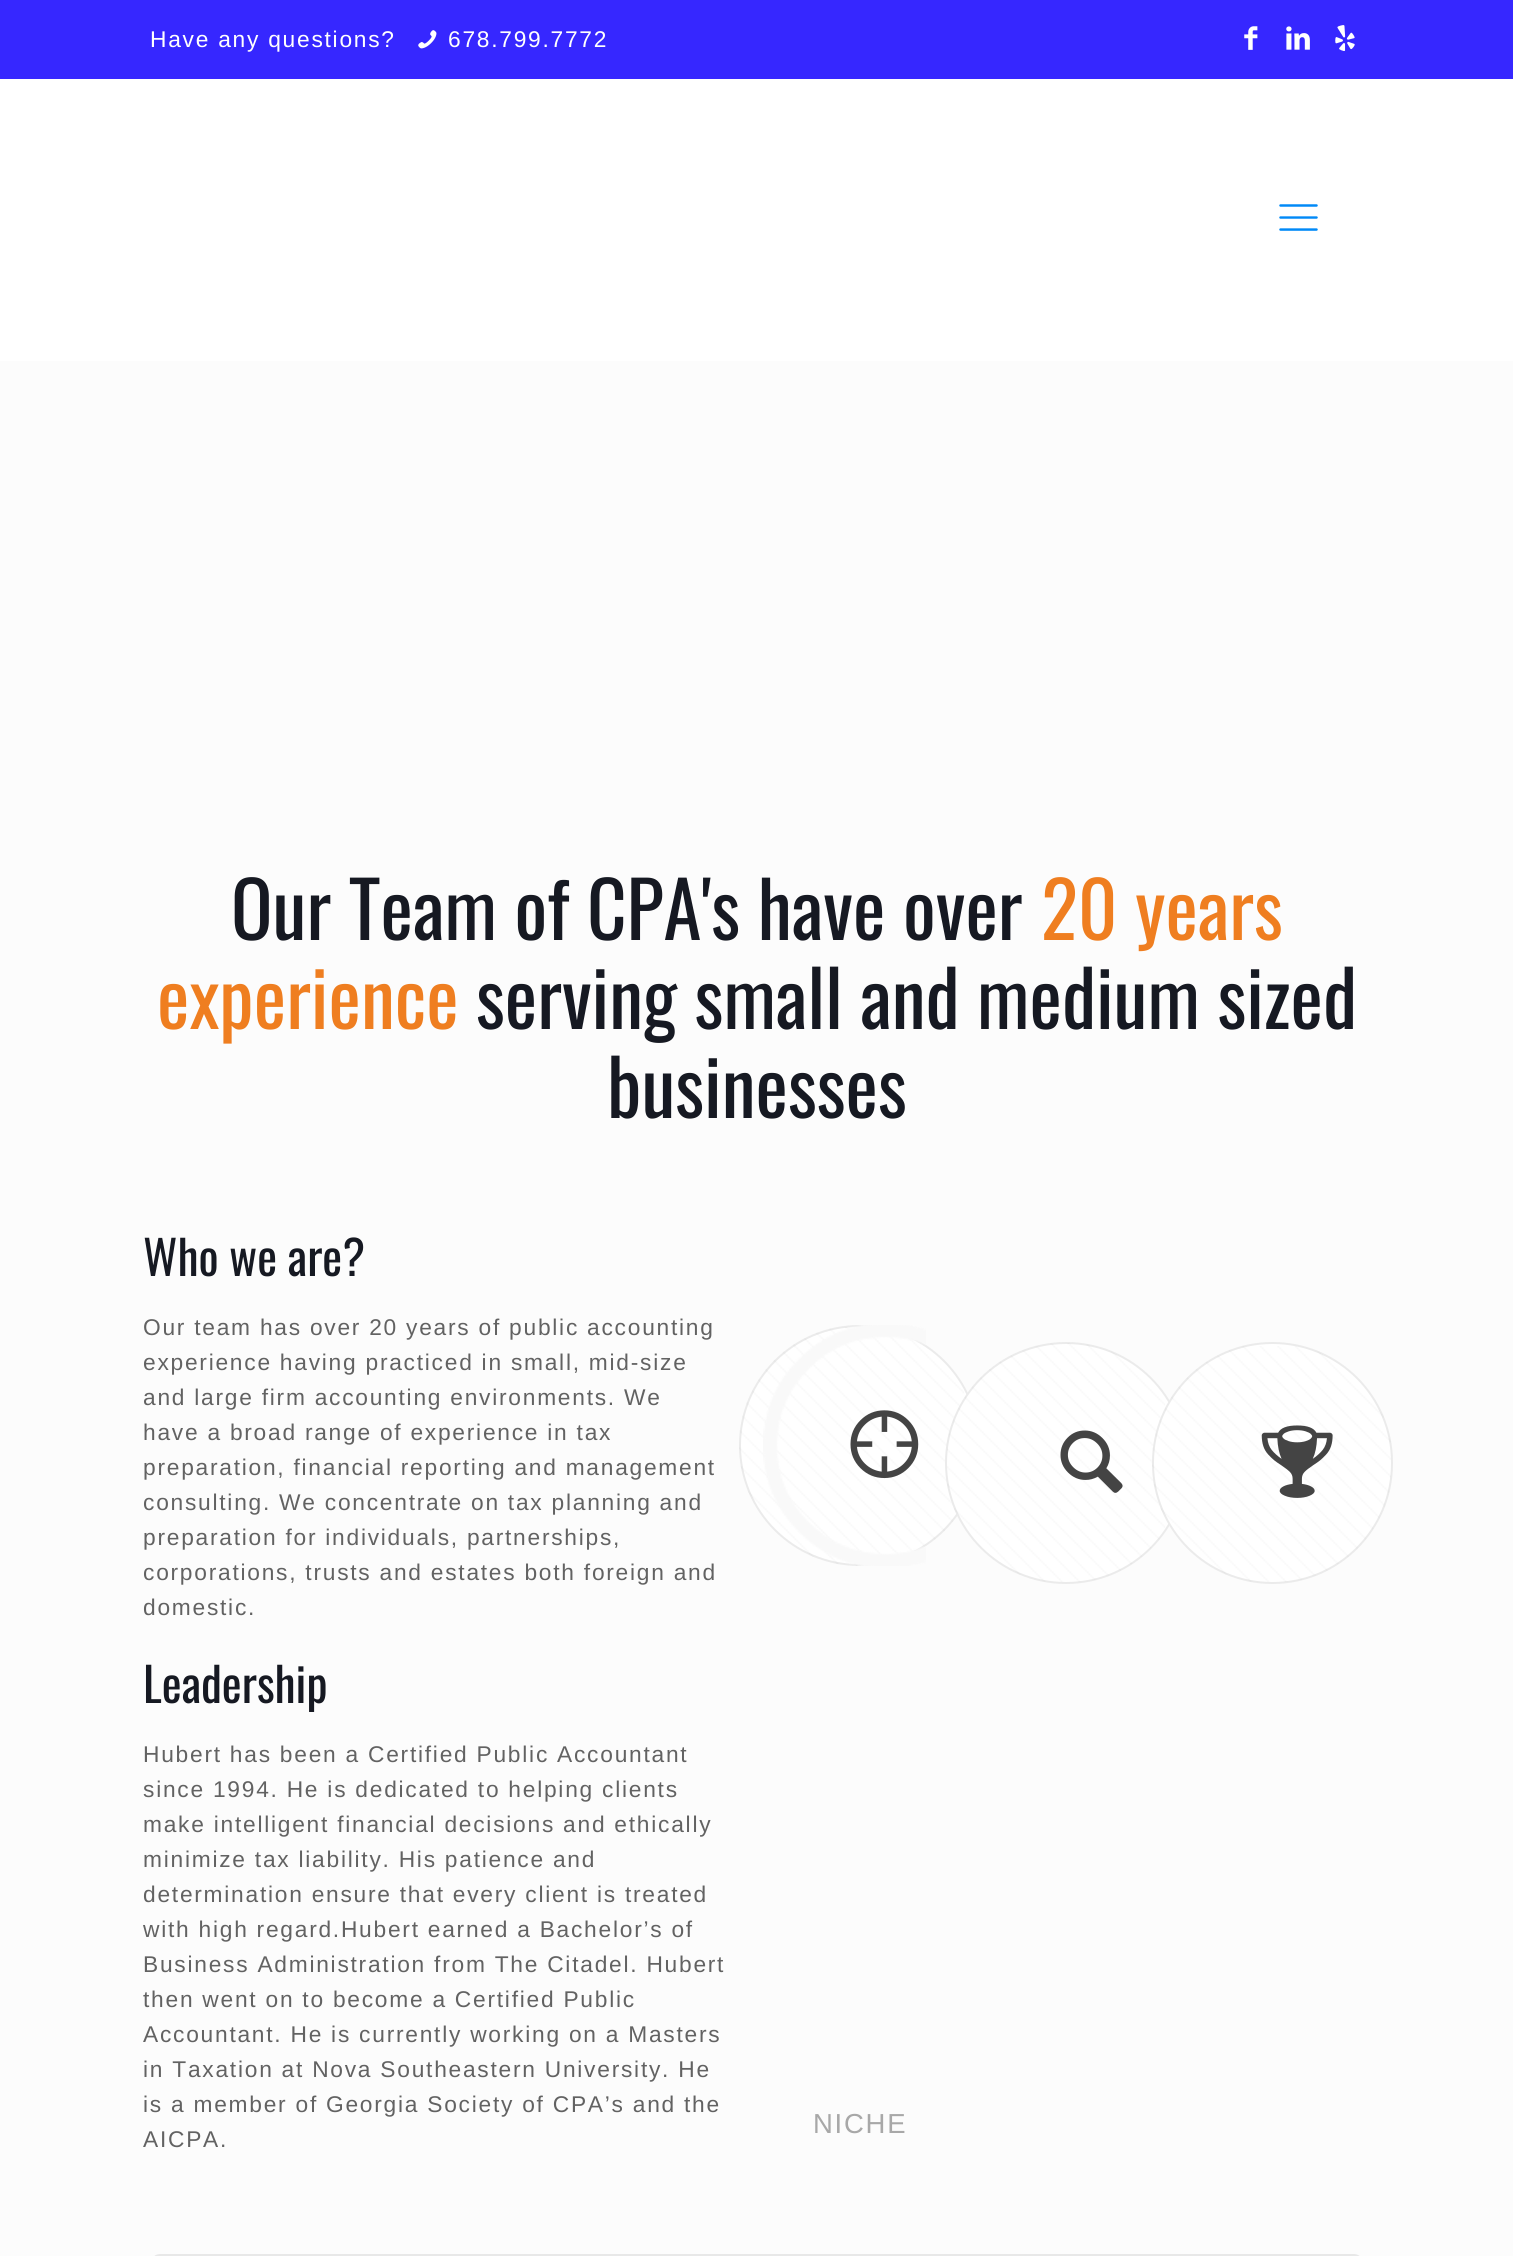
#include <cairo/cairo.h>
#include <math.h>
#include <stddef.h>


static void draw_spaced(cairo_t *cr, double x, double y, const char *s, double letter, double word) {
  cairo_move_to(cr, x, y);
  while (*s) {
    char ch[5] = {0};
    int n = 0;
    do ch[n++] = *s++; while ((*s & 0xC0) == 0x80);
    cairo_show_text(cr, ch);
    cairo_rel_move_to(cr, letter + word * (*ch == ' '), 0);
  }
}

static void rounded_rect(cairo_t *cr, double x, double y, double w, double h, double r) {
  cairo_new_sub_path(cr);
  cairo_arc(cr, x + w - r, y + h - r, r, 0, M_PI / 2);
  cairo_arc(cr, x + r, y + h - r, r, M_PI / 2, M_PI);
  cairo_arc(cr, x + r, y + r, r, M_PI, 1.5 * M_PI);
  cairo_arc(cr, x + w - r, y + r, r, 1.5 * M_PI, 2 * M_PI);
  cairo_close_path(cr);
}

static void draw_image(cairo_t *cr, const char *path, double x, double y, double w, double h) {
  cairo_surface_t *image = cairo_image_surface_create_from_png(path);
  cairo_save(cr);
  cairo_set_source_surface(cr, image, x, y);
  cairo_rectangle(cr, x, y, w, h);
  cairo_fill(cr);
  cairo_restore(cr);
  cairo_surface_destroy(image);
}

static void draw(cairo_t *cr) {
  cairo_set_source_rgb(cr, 252 / 255.0, 252 / 255.0, 252 / 255.0);
  cairo_paint(cr);
  cairo_set_source_rgb(cr, 54 / 255.0, 39 / 255.0, 1);
  cairo_rectangle(cr, 0, 0, 1513, 79);
  cairo_fill(cr);
  draw_image(cr, "images/1.png", 418, 30, 19, 19);
  draw_image(cr, "images/2.png", 1244, 26, 14, 24);
  draw_image(cr, "images/3.png", 1286, 26, 24, 24);
  draw_image(cr, "images/4.png", 1335, 25, 20, 26);
  cairo_set_source_rgb(cr, 1, 1, 1);
  cairo_rectangle(cr, 0, 79, 1513, 282);
  cairo_fill(cr);
  draw_image(cr, "images/5.png", 1279, 204, 39, 27);
  cairo_arc(cr, 859.5, 1445.5, 120.5, 0, 2 * M_PI);
  cairo_fill(cr);
  draw_image(cr, "images/10.png", 739, 1327, 225, 239);
  cairo_arc(cr, 859.5, 1445.5, 119.5, 0, 2 * M_PI);
  cairo_set_source_rgba(cr, 0, 0, 0, 0.08);
  cairo_stroke(cr);
  cairo_set_source_rgb(cr, 1, 1, 1);
  cairo_arc(cr, 1066, 1463, 121, 0, 2 * M_PI);
  cairo_fill(cr);
  draw_image(cr, "images/6.png", 947, 1343, 218, 239);
  cairo_arc(cr, 1066, 1463, 120, 0, 2 * M_PI);
  cairo_set_source_rgba(cr, 0, 0, 0, 0.08);
  cairo_stroke(cr);
  draw_image(cr, "images/7.png", 1060, 1430, 63, 63);
  cairo_set_source_rgb(cr, 1, 1, 1);
  rounded_rect(cr, 1152, 1342, 241, 242, 120.5);
  cairo_fill(cr);
  draw_image(cr, "images/8.png", 1152, 1346, 239, 236);
  rounded_rect(cr, 1153, 1343, 239, 240, 119.5);
  cairo_set_source_rgba(cr, 0, 0, 0, 0.08);
  cairo_stroke(cr);
  draw_image(cr, "images/9.png", 1261, 1425, 72, 73);
  draw_image(cr, "images/11.png", 763, 1325, 163, 241);
  draw_image(cr, "images/12.png", 850, 1410, 69, 69);
  rounded_rect(cr, 152, 2255, 1210, 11, 8);
  cairo_set_source_rgb(cr, 232 / 255.0, 232 / 255.0, 232 / 255.0);
  cairo_stroke(cr);
  cairo_select_font_face(cr, "Liberation Sans", CAIRO_FONT_SLANT_NORMAL, CAIRO_FONT_WEIGHT_NORMAL);
  cairo_set_font_size(cr, 22.75);
  cairo_set_source_rgb(cr, 1, 1, 1);
  draw_spaced(cr, 150, 47, "Have any questions?", 1.75, 0);
  draw_spaced(cr, 448, 47, "678.799.7772", 1.75, 0);
  cairo_select_font_face(cr, "Oswald", CAIRO_FONT_SLANT_NORMAL, CAIRO_FONT_WEIGHT_NORMAL);
  cairo_set_font_size(cr, 77);
  cairo_set_source_rgb(cr, 22 / 255.0, 25 / 255.0, 34 / 255.0);
  cairo_move_to(cr, 231, 940);
  cairo_show_text(cr, "Our Team of CPA's have over");
  cairo_set_source_rgb(cr, 239 / 255.0, 126 / 255.0, 32 / 255.0);
  cairo_move_to(cr, 1041, 940);
  cairo_show_text(cr, "20 years");
  cairo_move_to(cr, 157, 1029);
  cairo_show_text(cr, "experience");
  cairo_set_source_rgb(cr, 22 / 255.0, 25 / 255.0, 34 / 255.0);
  cairo_move_to(cr, 476, 1029);
  cairo_show_text(cr, "serving small and medium sized");
  cairo_move_to(cr, 607, 1118);
  cairo_show_text(cr, "businesses");
  cairo_set_font_size(cr, 47.25);
  cairo_move_to(cr, 143, 1276);
  cairo_show_text(cr, "Who we are?");
  cairo_select_font_face(cr, "Liberation Sans", CAIRO_FONT_SLANT_NORMAL, CAIRO_FONT_WEIGHT_NORMAL);
  cairo_set_font_size(cr, 22.75);
  cairo_set_source_rgb(cr, 98 / 255.0, 98 / 255.0, 98 / 255.0);
  draw_spaced(cr, 143, 1335, "Our team has over 20 years of public accounting", 1.75, 0);
  draw_spaced(cr, 143, 1370, "experience having practiced in small, mid-size", 1.75, 0);
  draw_spaced(cr, 143, 1405, "and large firm accounting environments. We", 1.75, 0);
  draw_spaced(cr, 143, 1440, "have a broad range of experience in tax", 1.75, 0);
  draw_spaced(cr, 143, 1475, "preparation, financial reporting and management", 1.75, 0);
  draw_spaced(cr, 143, 1510, "consulting. We concentrate on tax planning and", 1.75, 0);
  draw_spaced(cr, 143, 1545, "preparation for individuals, partnerships,", 1.75, 0);
  draw_spaced(cr, 143, 1580, "corporations, trusts and estates both foreign and", 1.75, 0);
  draw_spaced(cr, 143, 1615, "domestic.", 1.75, 0);
  cairo_select_font_face(cr, "Oswald", CAIRO_FONT_SLANT_NORMAL, CAIRO_FONT_WEIGHT_NORMAL);
  cairo_set_font_size(cr, 47.25);
  cairo_set_source_rgb(cr, 22 / 255.0, 25 / 255.0, 34 / 255.0);
  cairo_move_to(cr, 143, 1703);
  cairo_show_text(cr, "Leadership");
  cairo_select_font_face(cr, "Liberation Sans", CAIRO_FONT_SLANT_NORMAL, CAIRO_FONT_WEIGHT_NORMAL);
  cairo_set_font_size(cr, 22.75);
  cairo_set_source_rgb(cr, 98 / 255.0, 98 / 255.0, 98 / 255.0);
  draw_spaced(cr, 143, 1762, "Hubert has been a Certified Public Accountant", 1.75, 0);
  draw_spaced(cr, 143, 1797, "since 1994. He is dedicated to helping clients", 1.75, 0);
  draw_spaced(cr, 143, 1832, "make intelligent financial decisions and ethically", 1.75, 0);
  draw_spaced(cr, 143, 1867, "minimize tax liability. His patience and", 1.75, 0);
  draw_spaced(cr, 143, 1902, "determination ensure that every client is treated", 1.75, 0);
  draw_spaced(cr, 143, 1937, "with high regard.Hubert earned a Bachelor’s of", 1.75, 0);
  draw_spaced(cr, 143, 1972, "Business Administration from The Citadel. Hubert", 1.75, 0);
  draw_spaced(cr, 143, 2007, "then went on to become a Certified Public", 1.75, 0);
  draw_spaced(cr, 143, 2042, "Accountant. He is currently working on a Masters", 1.75, 0);
  draw_spaced(cr, 143, 2077, "in Taxation at Nova Southeastern University. He", 1.75, 0);
  draw_spaced(cr, 143, 2112, "is a member of Georgia Society of CPA’s and the", 1.75, 0);
  draw_spaced(cr, 143, 2147, "AICPA.", 1.75, 0);
  cairo_set_font_size(cr, 27.5);
  cairo_set_source_rgb(cr, 168 / 255.0, 168 / 255.0, 168 / 255.0);
  draw_spaced(cr, 813, 2133, "NICHE", 1.75, 0);
}

int main(void) {
  cairo_surface_t *surface = cairo_image_surface_create(CAIRO_FORMAT_RGB24, 1513, 2256);
  cairo_t *cr = cairo_create(surface);
  cairo_font_options_t *options = cairo_font_options_create();
  cairo_font_options_set_hint_metrics(options, CAIRO_HINT_METRICS_OFF);
  cairo_font_options_set_hint_style(options, CAIRO_HINT_STYLE_NONE);
  cairo_set_font_options(cr, options);
  cairo_set_miter_limit(cr, 4);
  draw(cr);
  cairo_surface_write_to_png(surface, "out.png");
  cairo_font_options_destroy(options);
  cairo_destroy(cr);
  cairo_surface_destroy(surface);
  return 0;
}
